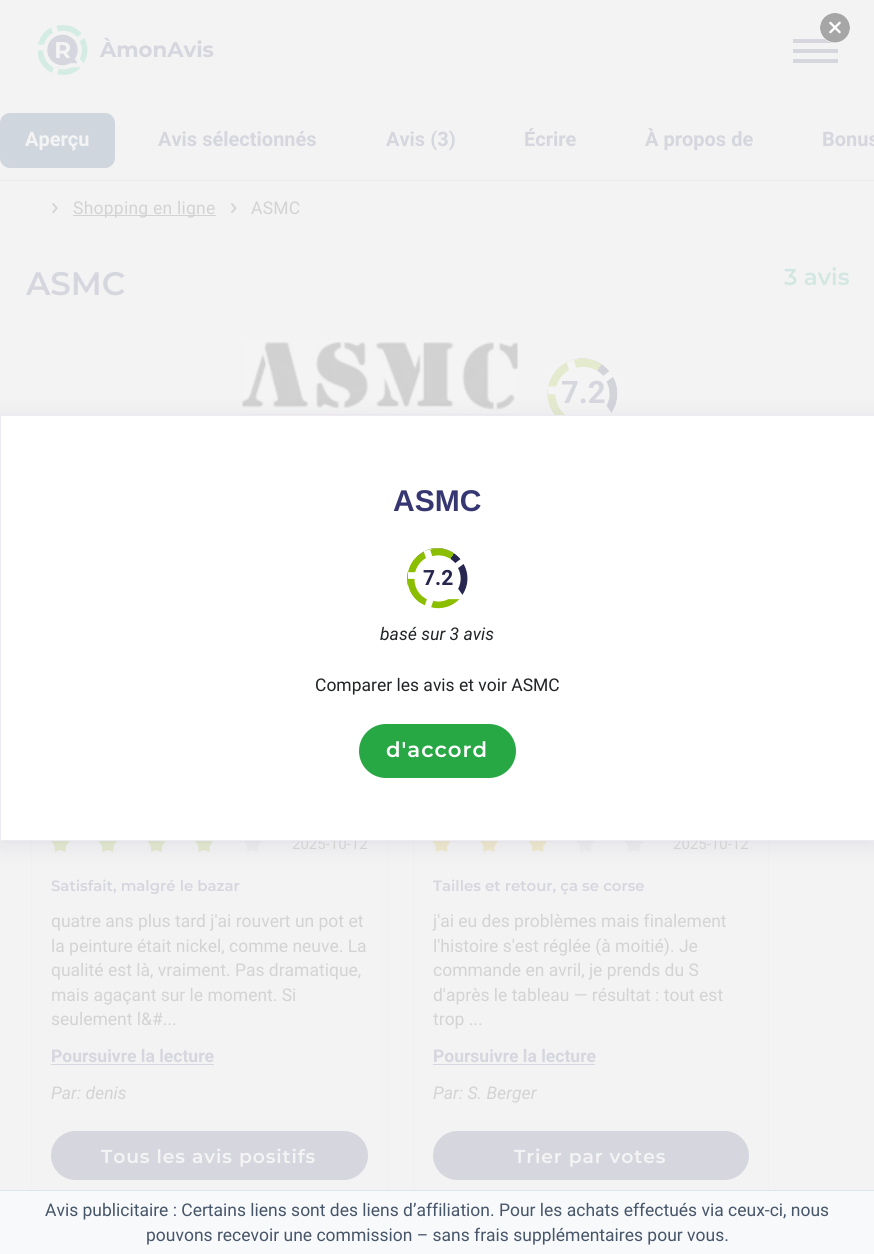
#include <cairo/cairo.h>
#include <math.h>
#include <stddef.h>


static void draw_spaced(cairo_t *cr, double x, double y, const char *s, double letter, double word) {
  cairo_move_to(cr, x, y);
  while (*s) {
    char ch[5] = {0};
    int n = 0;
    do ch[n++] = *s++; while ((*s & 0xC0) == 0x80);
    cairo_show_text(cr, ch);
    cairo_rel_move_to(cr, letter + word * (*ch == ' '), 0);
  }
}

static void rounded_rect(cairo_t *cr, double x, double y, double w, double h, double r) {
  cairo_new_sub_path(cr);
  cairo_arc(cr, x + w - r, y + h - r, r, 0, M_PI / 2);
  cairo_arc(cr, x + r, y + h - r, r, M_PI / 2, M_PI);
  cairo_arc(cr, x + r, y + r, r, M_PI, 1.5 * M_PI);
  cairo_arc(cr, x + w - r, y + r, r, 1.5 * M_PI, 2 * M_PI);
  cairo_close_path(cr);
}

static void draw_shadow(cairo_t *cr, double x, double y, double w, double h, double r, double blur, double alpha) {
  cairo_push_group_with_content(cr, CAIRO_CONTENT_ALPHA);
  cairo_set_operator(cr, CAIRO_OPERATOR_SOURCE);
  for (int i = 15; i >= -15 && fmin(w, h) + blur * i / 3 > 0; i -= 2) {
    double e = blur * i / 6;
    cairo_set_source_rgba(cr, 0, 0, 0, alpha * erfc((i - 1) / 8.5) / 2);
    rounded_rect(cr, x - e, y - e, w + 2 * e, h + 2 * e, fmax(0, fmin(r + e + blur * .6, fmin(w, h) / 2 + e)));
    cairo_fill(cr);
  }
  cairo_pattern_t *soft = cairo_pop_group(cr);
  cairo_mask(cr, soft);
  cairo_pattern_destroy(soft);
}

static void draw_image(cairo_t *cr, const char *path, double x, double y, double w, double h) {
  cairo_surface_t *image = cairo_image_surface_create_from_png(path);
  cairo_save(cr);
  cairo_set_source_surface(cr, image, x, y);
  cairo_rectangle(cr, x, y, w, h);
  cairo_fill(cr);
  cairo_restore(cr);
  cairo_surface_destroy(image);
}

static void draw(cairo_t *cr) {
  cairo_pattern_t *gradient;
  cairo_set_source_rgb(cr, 243 / 255.0, 243 / 255.0, 243 / 255.0);
  cairo_paint(cr);
  draw_image(cr, "images/1.png", 38, 25, 50, 50);
  cairo_set_source_rgb(cr, 214 / 255.0, 214 / 255.0, 223 / 255.0);
  cairo_rectangle(cr, 793, 49, 45, 4);
  cairo_fill(cr);
  cairo_rectangle(cr, 793, 39, 45, 4);
  cairo_fill(cr);
  cairo_rectangle(cr, 793, 59, 45, 4);
  cairo_fill(cr);
  cairo_set_source_rgb(cr, 236 / 255.0, 236 / 255.0, 236 / 255.0);
  cairo_rectangle(cr, 0, 180, 874, 1);
  cairo_fill(cr);
  cairo_set_source_rgb(cr, 208 / 255.0, 214 / 255.0, 222 / 255.0);
  rounded_rect(cr, 0, 113, 115, 55, 10);
  cairo_fill(cr);
  draw_image(cr, "images/2.png", 52, 203, 6, 11);
  cairo_set_source_rgb(cr, 211 / 255.0, 211 / 255.0, 212 / 255.0);
  cairo_rectangle(cr, 73, 215, 143, 1);
  cairo_fill(cr);
  draw_image(cr, "images/3.png", 231, 203, 6, 11);
  draw_image(cr, "images/4.png", 242, 340, 276, 75);
  gradient = cairo_pattern_create_linear(554, 423, 611, 364);
  cairo_pattern_add_color_stop_rgba(gradient, 0.5, 227 / 255.0, 234 / 255.0, 206 / 255.0, 1);
  cairo_pattern_add_color_stop_rgba(gradient, 0.5, 211 / 255.0, 211 / 255.0, 218 / 255.0, 1);
  cairo_pattern_add_color_stop_rgba(gradient, 1, 211 / 255.0, 211 / 255.0, 218 / 255.0, 1);
  cairo_set_source(cr, gradient);
  cairo_pattern_destroy(gradient);
  cairo_new_path(cr);
  cairo_move_to(cr, 603, 422);
  cairo_curve_to(cr, 587, 433, 566, 430, 554, 414);
  cairo_curve_to(cr, 543, 398, 546, 376, 562, 365);
  cairo_curve_to(cr, 578, 354, 599, 357, 611, 373);
  cairo_curve_to(cr, 622, 388, 619, 410, 603, 422);
  cairo_close_path(cr);
  cairo_fill(cr);
  gradient = cairo_pattern_create_linear(545, 369, 620, 418);
  cairo_pattern_add_color_stop_rgba(gradient, 0.5, 227 / 255.0, 234 / 255.0, 206 / 255.0, 1);
  cairo_pattern_add_color_stop_rgba(gradient, 0.5, 227 / 255.0, 234 / 255.0, 206 / 255.0, 0);
  cairo_pattern_add_color_stop_rgba(gradient, 1, 206 / 255.0, 206 / 255.0, 206 / 255.0, 0);
  cairo_set_source(cr, gradient);
  cairo_pattern_destroy(gradient);
  cairo_new_path(cr);
  cairo_move_to(cr, 603, 422);
  cairo_curve_to(cr, 587, 433, 566, 430, 554, 414);
  cairo_curve_to(cr, 543, 398, 546, 376, 562, 365);
  cairo_curve_to(cr, 578, 354, 599, 357, 611, 373);
  cairo_curve_to(cr, 622, 388, 619, 410, 603, 422);
  cairo_close_path(cr);
  cairo_fill(cr);
  draw_image(cr, "images/5.png", 548, 359, 70, 56);
  rounded_rect(cr, 31.5, 769.5, 356, 430, 14.5);
  cairo_set_source_rgba(cr, 214 / 255.0, 214 / 255.0, 223 / 255.0, 0.1);
  cairo_set_line_width(cr, 1);
  cairo_stroke(cr);
  draw_image(cr, "images/6.png", 51, 841, 19, 11);
  draw_image(cr, "images/7.png", 98, 841, 19, 11);
  draw_image(cr, "images/8.png", 147, 841, 19, 11);
  draw_image(cr, "images/9.png", 195, 841, 18, 11);
  draw_image(cr, "images/10.png", 244, 841, 18, 11);
  cairo_set_source_rgb(cr, 214 / 255.0, 214 / 255.0, 223 / 255.0);
  cairo_rectangle(cr, 51, 1064, 163, 1);
  cairo_fill(cr);
  rounded_rect(cr, 51, 1131, 317, 49, 24.5);
  cairo_fill(cr);
  rounded_rect(cr, 413.5, 769.5, 355, 430, 14.5);
  cairo_set_source_rgba(cr, 214 / 255.0, 214 / 255.0, 223 / 255.0, 0.1);
  cairo_stroke(cr);
  draw_image(cr, "images/11.png", 432, 841, 19, 11);
  draw_image(cr, "images/12.png", 480, 841, 18, 11);
  draw_image(cr, "images/13.png", 528, 841, 19, 11);
  draw_image(cr, "images/14.png", 576, 841, 18, 11);
  draw_image(cr, "images/15.png", 625, 841, 18, 11);
  cairo_set_source_rgb(cr, 214 / 255.0, 214 / 255.0, 223 / 255.0);
  cairo_rectangle(cr, 433, 1064, 162, 1);
  cairo_fill(cr);
  rounded_rect(cr, 433, 1131, 316, 49, 24.5);
  cairo_fill(cr);
  cairo_set_source_rgb(cr, 1, 1, 1);
  cairo_arc(cr, 835, 28, 15, 0, 2 * M_PI);
  cairo_fill(cr);
  draw_image(cr, "images/16.png", 820, 13, 30, 30);
  cairo_set_source_rgb(cr, 54 / 255.0, 54 / 255.0, 114 / 255.0);
  draw_shadow(cr, 0, 419, 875, 426, 0, 11, 0.1);
  cairo_set_source_rgba(cr, 248 / 255.0, 250 / 255.0, 252 / 255.0, 0.95);
  cairo_rectangle(cr, 0, 1191, 874, 63);
  cairo_fill(cr);
  cairo_set_source_rgb(cr, 221 / 255.0, 228 / 255.0, 236 / 255.0);
  cairo_rectangle(cr, 0, 1190, 874, 1);
  cairo_fill(cr);
  cairo_select_font_face(cr, "Montserrat", CAIRO_FONT_SLANT_NORMAL, CAIRO_FONT_WEIGHT_BOLD);
  cairo_set_font_size(cr, 21.25);
  cairo_set_source_rgb(cr, 214 / 255.0, 214 / 255.0, 223 / 255.0);
  cairo_move_to(cr, 100, 57);
  cairo_show_text(cr, "ÀmonAvis");
  cairo_select_font_face(cr, "Roboto", CAIRO_FONT_SLANT_NORMAL, CAIRO_FONT_WEIGHT_BOLD);
  cairo_set_font_size(cr, 20);
  cairo_set_source_rgb(cr, 244 / 255.0, 244 / 255.0, 244 / 255.0);
  cairo_move_to(cr, 25, 146);
  cairo_show_text(cr, "Aperçu");
  cairo_set_source_rgb(cr, 214 / 255.0, 214 / 255.0, 223 / 255.0);
  cairo_move_to(cr, 158, 146);
  cairo_show_text(cr, "Avis sélectionnés");
  cairo_move_to(cr, 386, 146);
  cairo_show_text(cr, "Avis (3)");
  cairo_move_to(cr, 524, 146);
  cairo_show_text(cr, "Écrire");
  cairo_move_to(cr, 645, 146);
  cairo_show_text(cr, "À propos de");
  cairo_move_to(cr, 822, 146);
  cairo_show_text(cr, "Bonus");
  cairo_select_font_face(cr, "Roboto", CAIRO_FONT_SLANT_NORMAL, CAIRO_FONT_WEIGHT_NORMAL);
  cairo_set_font_size(cr, 17.5);
  cairo_set_source_rgb(cr, 211 / 255.0, 211 / 255.0, 212 / 255.0);
  draw_spaced(cr, 73, 214, "Shopping en ligne", 0.25, 0);
  draw_spaced(cr, 251, 214, "ASMC", 0.25, 0);
  cairo_select_font_face(cr, "Montserrat SemiBold", CAIRO_FONT_SLANT_NORMAL, CAIRO_FONT_WEIGHT_NORMAL);
  cairo_set_font_size(cr, 32.5);
  cairo_set_source_rgb(cr, 214 / 255.0, 214 / 255.0, 223 / 255.0);
  cairo_move_to(cr, 26, 295);
  cairo_show_text(cr, "ASMC");
  cairo_set_font_size(cr, 23);
  cairo_set_source_rgb(cr, 211 / 255.0, 231 / 255.0, 226 / 255.0);
  cairo_move_to(cr, 784, 285);
  cairo_show_text(cr, "3 avis");
  cairo_select_font_face(cr, "Roboto", CAIRO_FONT_SLANT_NORMAL, CAIRO_FONT_WEIGHT_BOLD);
  cairo_set_font_size(cr, 31);
  cairo_set_source_rgb(cr, 214 / 255.0, 214 / 255.0, 223 / 255.0);
  cairo_move_to(cr, 561, 403);
  cairo_show_text(cr, "7.2");
  cairo_select_font_face(cr, "Roboto", CAIRO_FONT_SLANT_NORMAL, CAIRO_FONT_WEIGHT_NORMAL);
  cairo_set_font_size(cr, 15);
  cairo_set_source_rgb(cr, 211 / 255.0, 211 / 255.0, 212 / 255.0);
  cairo_move_to(cr, 292, 849);
  cairo_show_text(cr, "2025-10-12");
  cairo_select_font_face(cr, "Montserrat SemiBold", CAIRO_FONT_SLANT_NORMAL, CAIRO_FONT_WEIGHT_NORMAL);
  cairo_set_font_size(cr, 14.9);
  cairo_set_source_rgb(cr, 214 / 255.0, 214 / 255.0, 223 / 255.0);
  cairo_move_to(cr, 51, 891);
  cairo_show_text(cr, "Satisfait, malgré le bazar");
  cairo_select_font_face(cr, "Roboto", CAIRO_FONT_SLANT_NORMAL, CAIRO_FONT_WEIGHT_NORMAL);
  cairo_set_font_size(cr, 17.5);
  cairo_set_source_rgb(cr, 211 / 255.0, 211 / 255.0, 212 / 255.0);
  cairo_move_to(cr, 51, 927);
  cairo_show_text(cr, "quatre ans plus tard j'ai rouvert un pot et");
  cairo_move_to(cr, 51, 952);
  cairo_show_text(cr, "la peinture était nickel, comme neuve. La");
  cairo_move_to(cr, 51, 976);
  cairo_show_text(cr, "qualité est là, vraiment. Pas dramatique,");
  cairo_move_to(cr, 51, 1001);
  cairo_show_text(cr, "mais agaçant sur le moment. Si");
  cairo_move_to(cr, 51, 1025);
  cairo_show_text(cr, "seulement l&#...");
  cairo_select_font_face(cr, "Roboto", CAIRO_FONT_SLANT_NORMAL, CAIRO_FONT_WEIGHT_BOLD);
  cairo_set_source_rgb(cr, 214 / 255.0, 214 / 255.0, 223 / 255.0);
  cairo_move_to(cr, 51, 1062);
  cairo_show_text(cr, "Poursuivre la lecture");
  cairo_select_font_face(cr, "Roboto", CAIRO_FONT_SLANT_ITALIC, CAIRO_FONT_WEIGHT_NORMAL);
  cairo_set_source_rgb(cr, 211 / 255.0, 211 / 255.0, 212 / 255.0);
  cairo_move_to(cr, 51, 1099);
  cairo_show_text(cr, "Par: denis");
  cairo_select_font_face(cr, "Montserrat SemiBold", CAIRO_FONT_SLANT_NORMAL, CAIRO_FONT_WEIGHT_NORMAL);
  cairo_set_font_size(cr, 18.75);
  cairo_set_source_rgb(cr, 244 / 255.0, 244 / 255.0, 244 / 255.0);
  draw_spaced(cr, 101, 1163, "Tous les avis positifs", 0.9, 0);
  cairo_select_font_face(cr, "Roboto", CAIRO_FONT_SLANT_NORMAL, CAIRO_FONT_WEIGHT_NORMAL);
  cairo_set_font_size(cr, 15);
  cairo_set_source_rgb(cr, 211 / 255.0, 211 / 255.0, 212 / 255.0);
  cairo_move_to(cr, 673, 849);
  cairo_show_text(cr, "2025-10-12");
  cairo_select_font_face(cr, "Montserrat SemiBold", CAIRO_FONT_SLANT_NORMAL, CAIRO_FONT_WEIGHT_NORMAL);
  cairo_set_font_size(cr, 14.9);
  cairo_set_source_rgb(cr, 214 / 255.0, 214 / 255.0, 223 / 255.0);
  cairo_move_to(cr, 433, 891);
  cairo_show_text(cr, "Tailles et retour, ça se corse");
  cairo_select_font_face(cr, "Roboto", CAIRO_FONT_SLANT_NORMAL, CAIRO_FONT_WEIGHT_NORMAL);
  cairo_set_font_size(cr, 17.5);
  cairo_set_source_rgb(cr, 211 / 255.0, 211 / 255.0, 212 / 255.0);
  cairo_move_to(cr, 433, 927);
  cairo_show_text(cr, "j'ai eu des problèmes mais finalement");
  cairo_move_to(cr, 433, 952);
  cairo_show_text(cr, "l'histoire s'est réglée (à moitié). Je");
  cairo_move_to(cr, 433, 976);
  cairo_show_text(cr, "commande en avril, je prends du S");
  cairo_move_to(cr, 433, 1001);
  cairo_show_text(cr, "d'après le tableau — résultat : tout est");
  cairo_move_to(cr, 433, 1025);
  cairo_show_text(cr, "trop ...");
  cairo_select_font_face(cr, "Roboto", CAIRO_FONT_SLANT_NORMAL, CAIRO_FONT_WEIGHT_BOLD);
  cairo_set_source_rgb(cr, 214 / 255.0, 214 / 255.0, 223 / 255.0);
  cairo_move_to(cr, 433, 1062);
  cairo_show_text(cr, "Poursuivre la lecture");
  cairo_select_font_face(cr, "Roboto", CAIRO_FONT_SLANT_ITALIC, CAIRO_FONT_WEIGHT_NORMAL);
  cairo_set_source_rgb(cr, 211 / 255.0, 211 / 255.0, 212 / 255.0);
  cairo_move_to(cr, 433, 1099);
  cairo_show_text(cr, "Par: S. Berger");
  cairo_select_font_face(cr, "Montserrat SemiBold", CAIRO_FONT_SLANT_NORMAL, CAIRO_FONT_WEIGHT_NORMAL);
  cairo_set_font_size(cr, 18.75);
  cairo_set_source_rgb(cr, 244 / 255.0, 244 / 255.0, 244 / 255.0);
  draw_spaced(cr, 514, 1163, "Trier par votes", 0.9, 0);
  cairo_set_source_rgb(cr, 1, 1, 1);
  cairo_rectangle(cr, 0.5, 415.5, 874, 425);
  cairo_fill_preserve(cr);
  cairo_set_source_rgb(cr, 235 / 255.0, 235 / 255.0, 241 / 255.0);
  cairo_stroke(cr);
  cairo_select_font_face(cr, "Liberation Sans", CAIRO_FONT_SLANT_NORMAL, CAIRO_FONT_WEIGHT_BOLD);
  cairo_set_font_size(cr, 30);
  cairo_set_source_rgb(cr, 54 / 255.0, 54 / 255.0, 114 / 255.0);
  cairo_move_to(cr, 393, 511);
  cairo_show_text(cr, "ASMC");
  gradient = cairo_pattern_create_linear(413, 603, 462, 553);
  cairo_pattern_add_color_stop_rgba(gradient, 0.5, 140 / 255.0, 190 / 255.0, 0, 1);
  cairo_pattern_add_color_stop_rgba(gradient, 0.5, 38 / 255.0, 38 / 255.0, 79 / 255.0, 1);
  cairo_pattern_add_color_stop_rgba(gradient, 1, 38 / 255.0, 38 / 255.0, 79 / 255.0, 1);
  cairo_set_source(cr, gradient);
  cairo_pattern_destroy(gradient);
  cairo_new_path(cr);
  cairo_move_to(cr, 455, 603);
  cairo_curve_to(cr, 442, 612, 423, 609, 413, 596);
  cairo_curve_to(cr, 403, 583, 406, 564, 420, 554);
  cairo_curve_to(cr, 433, 544, 452, 547, 462, 561);
  cairo_curve_to(cr, 472, 574, 469, 593, 455, 603);
  cairo_close_path(cr);
  cairo_fill(cr);
  gradient = cairo_pattern_create_linear(405, 557, 470, 600);
  cairo_pattern_add_color_stop_rgba(gradient, 0.5, 140 / 255.0, 190 / 255.0, 0, 1);
  cairo_pattern_add_color_stop_rgba(gradient, 0.5, 140 / 255.0, 190 / 255.0, 0, 0);
  cairo_pattern_add_color_stop_rgba(gradient, 1, 0, 0, 0, 0);
  cairo_set_source(cr, gradient);
  cairo_pattern_destroy(gradient);
  cairo_new_path(cr);
  cairo_move_to(cr, 455, 603);
  cairo_curve_to(cr, 442, 612, 423, 609, 413, 596);
  cairo_curve_to(cr, 403, 583, 406, 564, 420, 554);
  cairo_curve_to(cr, 433, 544, 452, 547, 462, 561);
  cairo_curve_to(cr, 472, 574, 469, 593, 455, 603);
  cairo_close_path(cr);
  cairo_fill(cr);
  draw_image(cr, "images/17.png", 408, 548, 60, 60);
  cairo_select_font_face(cr, "Roboto", CAIRO_FONT_SLANT_NORMAL, CAIRO_FONT_WEIGHT_BOLD);
  cairo_set_font_size(cr, 21);
  cairo_set_source_rgb(cr, 38 / 255.0, 38 / 255.0, 79 / 255.0);
  cairo_move_to(cr, 423, 585);
  cairo_show_text(cr, "7.2");
  cairo_select_font_face(cr, "Roboto", CAIRO_FONT_SLANT_ITALIC, CAIRO_FONT_WEIGHT_NORMAL);
  cairo_set_font_size(cr, 17.5);
  cairo_set_source_rgb(cr, 33 / 255.0, 36 / 255.0, 39 / 255.0);
  cairo_move_to(cr, 380, 640);
  cairo_show_text(cr, "basé sur 3 avis");
  cairo_select_font_face(cr, "Roboto", CAIRO_FONT_SLANT_NORMAL, CAIRO_FONT_WEIGHT_NORMAL);
  cairo_move_to(cr, 315, 691);
  cairo_show_text(cr, "Comparer les avis et voir ASMC");
  cairo_set_source_rgb(cr, 40 / 255.0, 167 / 255.0, 69 / 255.0);
  rounded_rect(cr, 359, 724, 157, 54, 27);
  cairo_fill(cr);
  cairo_select_font_face(cr, "Montserrat SemiBold", CAIRO_FONT_SLANT_NORMAL, CAIRO_FONT_WEIGHT_NORMAL);
  cairo_set_font_size(cr, 21.25);
  cairo_set_source_rgb(cr, 1, 1, 1);
  draw_spaced(cr, 386, 757, "d'accord", 1, 0);
  cairo_select_font_face(cr, "Roboto", CAIRO_FONT_SLANT_NORMAL, CAIRO_FONT_WEIGHT_NORMAL);
  cairo_set_font_size(cr, 17.5);
  cairo_set_source_rgb(cr, 71 / 255.0, 85 / 255.0, 105 / 255.0);
  cairo_move_to(cr, 45, 1216);
  cairo_show_text(cr, "Avis publicitaire : Certains liens sont des liens d’affiliation. Pour les achats effectués via ceux-ci, nous");
  cairo_move_to(cr, 146, 1241);
  cairo_show_text(cr, "pouvons recevoir une commission – sans frais supplémentaires pour vous.");
}

int main(void) {
  cairo_surface_t *surface = cairo_image_surface_create(CAIRO_FORMAT_RGB24, 874, 1254);
  cairo_t *cr = cairo_create(surface);
  cairo_font_options_t *options = cairo_font_options_create();
  cairo_font_options_set_hint_metrics(options, CAIRO_HINT_METRICS_OFF);
  cairo_font_options_set_hint_style(options, CAIRO_HINT_STYLE_NONE);
  cairo_set_font_options(cr, options);
  cairo_set_miter_limit(cr, 4);
  draw(cr);
  cairo_surface_write_to_png(surface, "out.png");
  cairo_font_options_destroy(options);
  cairo_destroy(cr);
  cairo_surface_destroy(surface);
  return 0;
}
